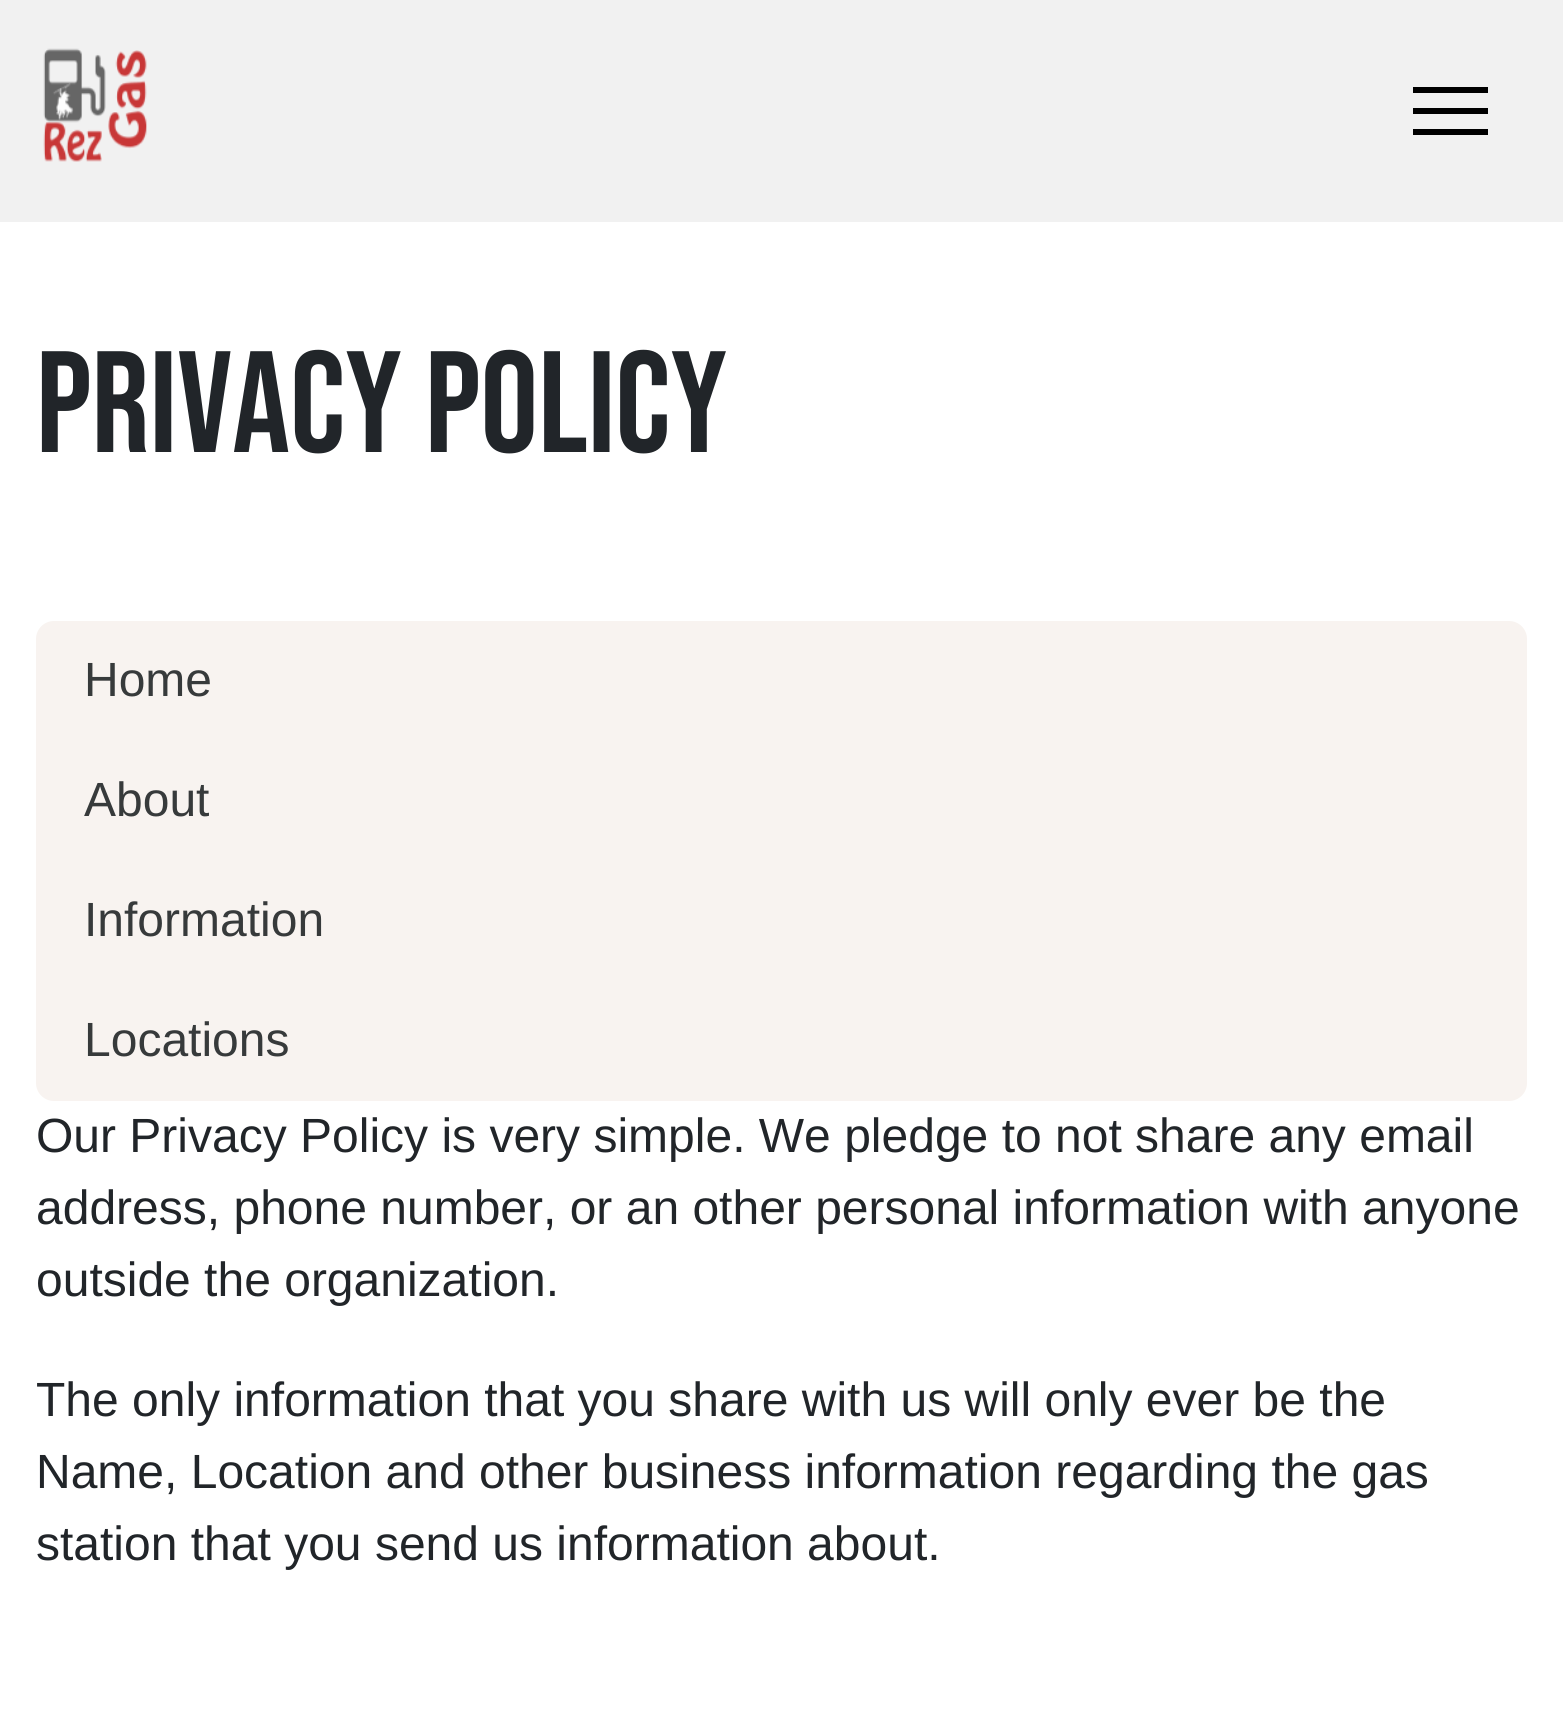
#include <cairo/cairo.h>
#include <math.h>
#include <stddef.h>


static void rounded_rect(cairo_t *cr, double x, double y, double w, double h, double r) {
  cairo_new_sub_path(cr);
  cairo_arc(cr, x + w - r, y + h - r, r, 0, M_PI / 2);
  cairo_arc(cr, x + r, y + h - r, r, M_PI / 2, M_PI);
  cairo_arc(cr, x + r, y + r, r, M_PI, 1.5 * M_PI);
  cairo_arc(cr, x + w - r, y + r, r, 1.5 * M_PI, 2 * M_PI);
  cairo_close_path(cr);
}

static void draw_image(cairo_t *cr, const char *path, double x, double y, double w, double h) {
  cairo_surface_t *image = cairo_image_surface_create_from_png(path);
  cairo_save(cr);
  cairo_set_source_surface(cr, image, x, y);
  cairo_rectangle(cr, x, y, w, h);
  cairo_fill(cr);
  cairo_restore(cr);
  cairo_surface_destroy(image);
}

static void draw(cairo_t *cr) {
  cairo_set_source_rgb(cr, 1, 1, 1);
  cairo_paint(cr);
  cairo_set_source_rgb(cr, 241 / 255.0, 241 / 255.0, 241 / 255.0);
  cairo_rectangle(cr, 0, 0, 1563, 222);
  cairo_fill(cr);
  draw_image(cr, "images/1.png", 43, 48, 104, 114);
  cairo_set_source_rgb(cr, 0, 0, 0);
  cairo_rectangle(cr, 1413, 87, 75, 6);
  cairo_fill(cr);
  cairo_rectangle(cr, 1413, 108, 75, 6);
  cairo_fill(cr);
  cairo_rectangle(cr, 1413, 129, 75, 6);
  cairo_fill(cr);
  cairo_set_source_rgb(cr, 248 / 255.0, 243 / 255.0, 240 / 255.0);
  rounded_rect(cr, 36, 621, 1491, 480, 18);
  cairo_fill(cr);
  cairo_select_font_face(cr, "Bebas Neue", CAIRO_FONT_SLANT_NORMAL, CAIRO_FONT_WEIGHT_NORMAL);
  cairo_set_font_size(cr, 144);
  cairo_set_source_rgb(cr, 33 / 255.0, 37 / 255.0, 41 / 255.0);
  cairo_move_to(cr, 36, 452);
  cairo_show_text(cr, "PRIVACY POLICY");
  cairo_select_font_face(cr, "Liberation Sans", CAIRO_FONT_SLANT_NORMAL, CAIRO_FONT_WEIGHT_NORMAL);
  cairo_set_font_size(cr, 48);
  cairo_set_source_rgb(cr, 55 / 255.0, 58 / 255.0, 59 / 255.0);
  cairo_move_to(cr, 84, 696);
  cairo_show_text(cr, "Home");
  cairo_move_to(cr, 84, 816);
  cairo_show_text(cr, "About");
  cairo_move_to(cr, 84, 936);
  cairo_show_text(cr, "Information");
  cairo_move_to(cr, 84, 1056);
  cairo_show_text(cr, "Locations");
  cairo_set_source_rgb(cr, 33 / 255.0, 37 / 255.0, 41 / 255.0);
  cairo_move_to(cr, 36, 1152);
  cairo_show_text(cr, "Our Privacy Policy is very simple. We pledge to not share any email");
  cairo_move_to(cr, 36, 1224);
  cairo_show_text(cr, "address, phone number, or an other personal information with anyone");
  cairo_move_to(cr, 36, 1296);
  cairo_show_text(cr, "outside the organization.");
  cairo_move_to(cr, 36, 1416);
  cairo_show_text(cr, "The only information that you share with us will only ever be the");
  cairo_move_to(cr, 36, 1488);
  cairo_show_text(cr, "Name, Location and other business information regarding the gas");
  cairo_move_to(cr, 36, 1560);
  cairo_show_text(cr, "station that you send us information about.");
}

int main(void) {
  cairo_surface_t *surface = cairo_image_surface_create(CAIRO_FORMAT_RGB24, 1563, 1712);
  cairo_t *cr = cairo_create(surface);
  cairo_font_options_t *options = cairo_font_options_create();
  cairo_font_options_set_hint_metrics(options, CAIRO_HINT_METRICS_OFF);
  cairo_font_options_set_hint_style(options, CAIRO_HINT_STYLE_NONE);
  cairo_set_font_options(cr, options);
  cairo_set_miter_limit(cr, 4);
  draw(cr);
  cairo_surface_write_to_png(surface, "out.png");
  cairo_font_options_destroy(options);
  cairo_destroy(cr);
  cairo_surface_destroy(surface);
  return 0;
}
